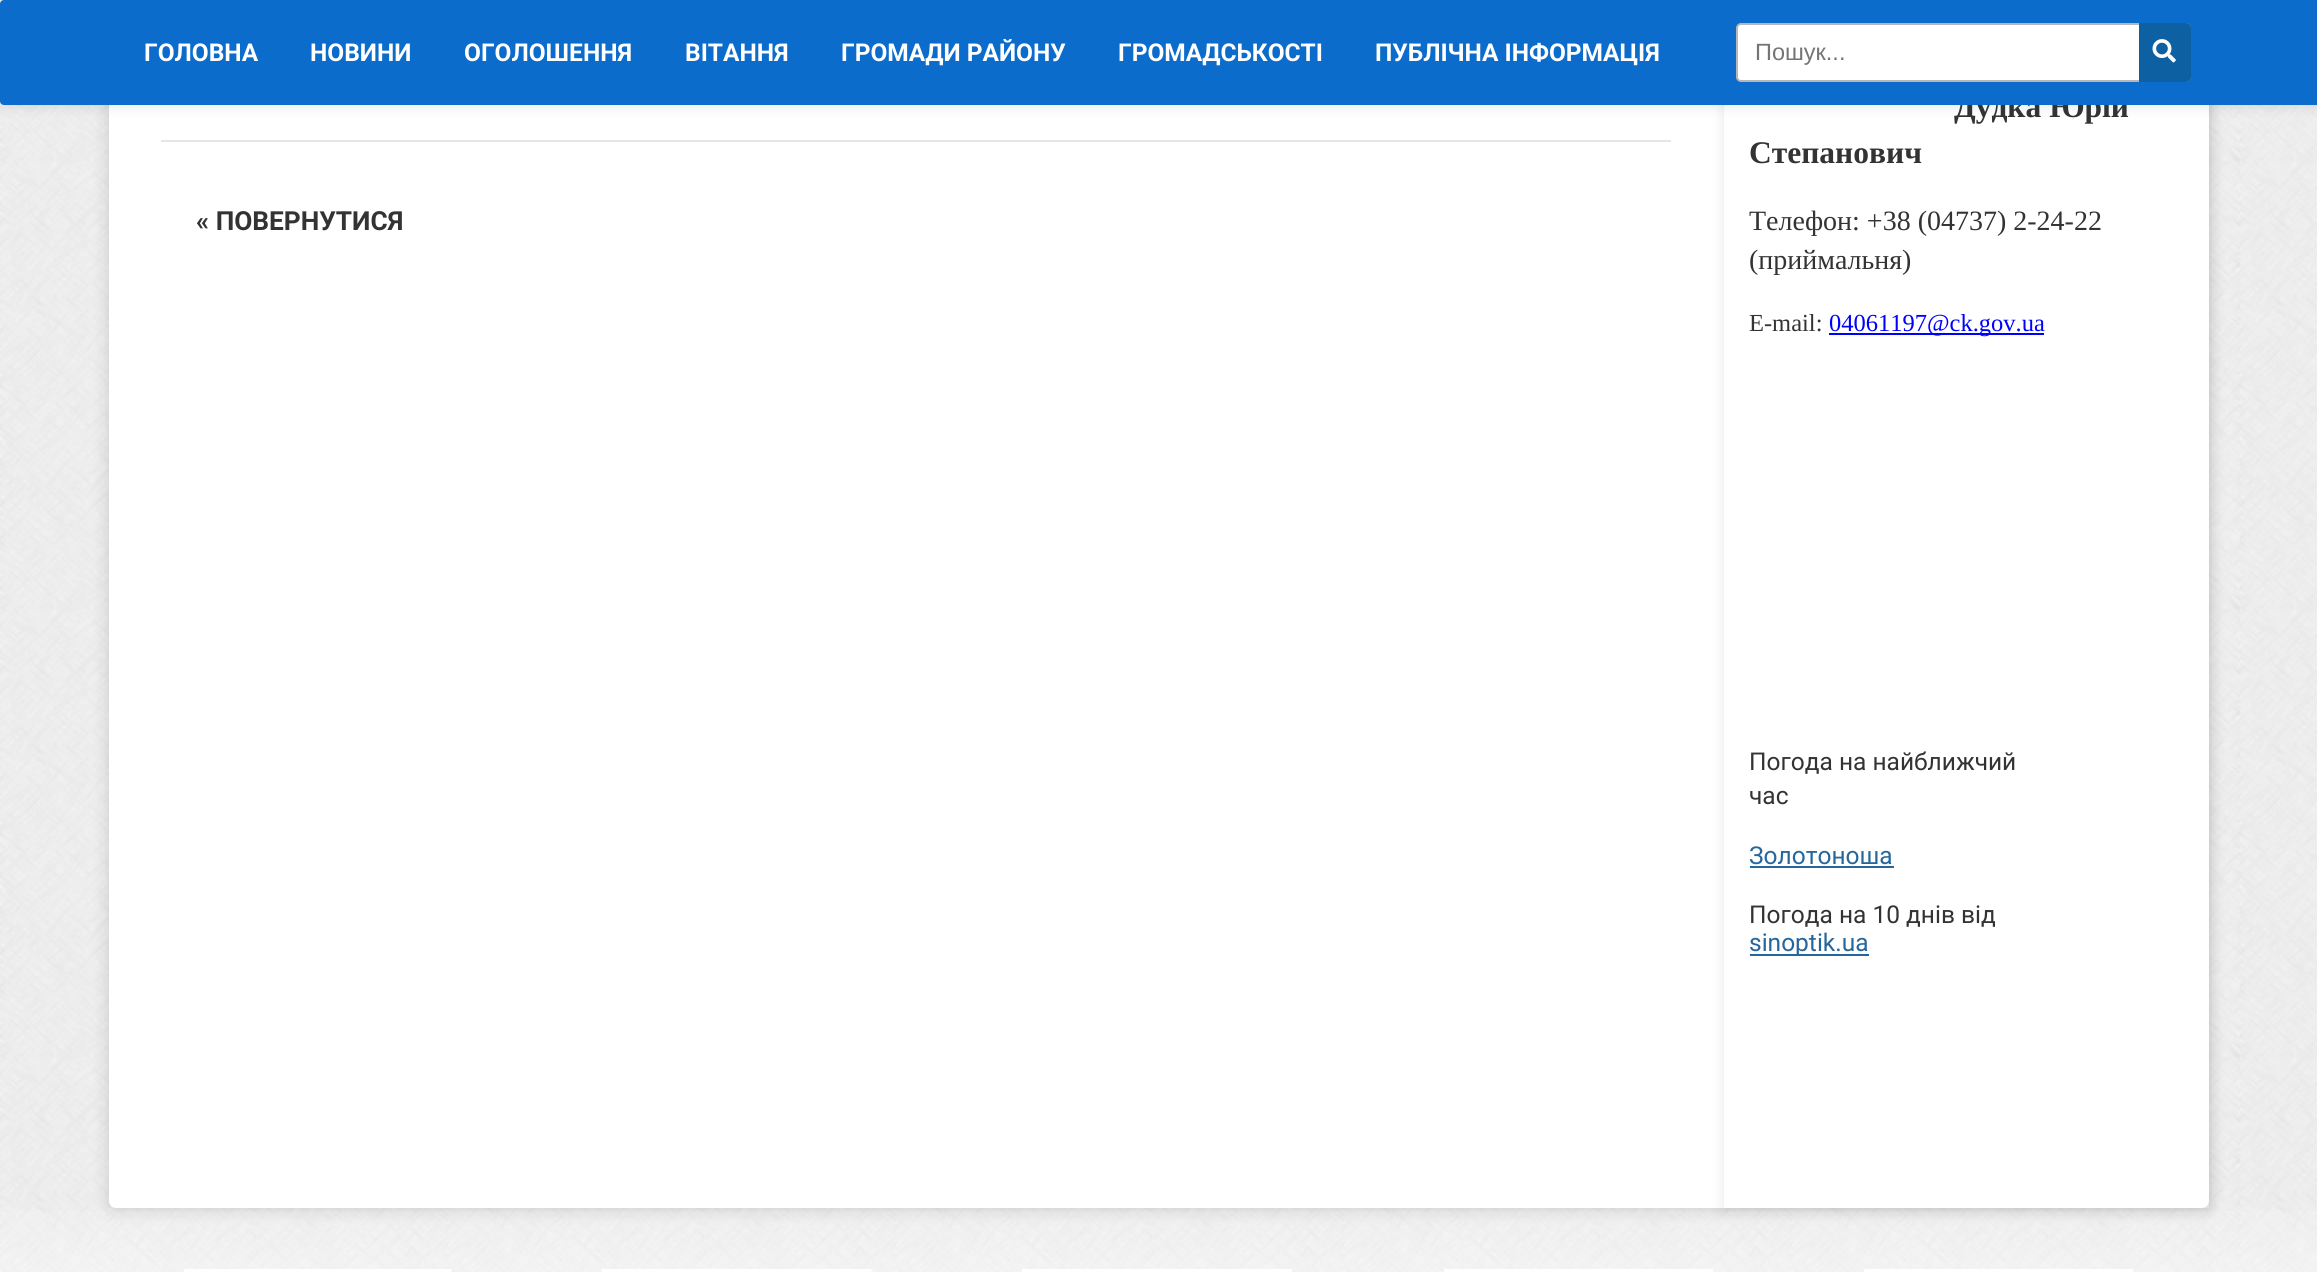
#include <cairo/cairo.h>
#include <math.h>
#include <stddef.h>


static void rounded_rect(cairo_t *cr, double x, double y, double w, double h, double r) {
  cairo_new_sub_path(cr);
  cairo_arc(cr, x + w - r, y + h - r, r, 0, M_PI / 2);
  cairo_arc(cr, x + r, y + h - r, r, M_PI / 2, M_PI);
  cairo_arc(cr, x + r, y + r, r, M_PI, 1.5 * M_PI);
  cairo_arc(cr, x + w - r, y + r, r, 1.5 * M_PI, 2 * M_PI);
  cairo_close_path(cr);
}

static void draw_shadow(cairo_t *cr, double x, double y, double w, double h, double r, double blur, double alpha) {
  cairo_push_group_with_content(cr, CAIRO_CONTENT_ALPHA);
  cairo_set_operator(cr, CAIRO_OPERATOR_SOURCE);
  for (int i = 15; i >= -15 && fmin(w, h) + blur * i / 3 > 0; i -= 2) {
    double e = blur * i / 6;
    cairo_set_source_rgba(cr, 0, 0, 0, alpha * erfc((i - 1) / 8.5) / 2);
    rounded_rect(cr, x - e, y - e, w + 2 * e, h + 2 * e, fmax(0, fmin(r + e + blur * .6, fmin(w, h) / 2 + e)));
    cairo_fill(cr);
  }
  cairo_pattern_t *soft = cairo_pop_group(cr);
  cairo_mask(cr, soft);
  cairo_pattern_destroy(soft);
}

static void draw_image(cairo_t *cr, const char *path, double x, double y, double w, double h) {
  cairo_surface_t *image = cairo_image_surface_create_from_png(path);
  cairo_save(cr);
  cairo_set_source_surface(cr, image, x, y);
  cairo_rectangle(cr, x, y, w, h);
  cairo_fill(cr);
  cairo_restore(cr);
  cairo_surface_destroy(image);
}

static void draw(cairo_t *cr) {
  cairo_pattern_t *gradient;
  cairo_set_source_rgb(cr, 1, 1, 1);
  cairo_paint(cr);
  draw_image(cr, "images/1.png", 0, 0, 2317, 1272);
  gradient = cairo_pattern_create_linear(1159, 1181, 1159, 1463);
  cairo_pattern_add_color_stop_rgba(gradient, 0, 1, 1, 1, 0);
  cairo_pattern_add_color_stop_rgba(gradient, 1, 1, 1, 1, 1);
  cairo_set_source(cr, gradient);
  cairo_pattern_destroy(gradient);
  cairo_rectangle(cr, 0, 1211, 2317, 61);
  cairo_fill(cr);
  cairo_set_source_rgb(cr, 0, 0, 0);
  draw_shadow(cr, 109, -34, 2100, 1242, 7, 9, 0.15);
  cairo_set_source_rgb(cr, 1, 1, 1);
  rounded_rect(cr, 109, -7, 2100, 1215, 7);
  cairo_fill(cr);
  cairo_set_source_rgb(cr, 0, 0, 0);
  draw_shadow(cr, 0, 2, 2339, 105, 4, 6, 0.1);
  cairo_set_source_rgb(cr, 229 / 255.0, 229 / 255.0, 229 / 255.0);
  cairo_rectangle(cr, 161, 140, 1510, 2);
  cairo_fill(cr);
  cairo_save(cr);
  cairo_set_fill_rule(cr, CAIRO_FILL_RULE_EVEN_ODD);
  cairo_new_path(cr);
  cairo_move_to(cr, 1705, 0);
  cairo_line_to(cr, 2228, 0);
  cairo_line_to(cr, 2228, 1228);
  cairo_line_to(cr, 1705, 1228);
  cairo_close_path(cr);
  cairo_move_to(cr, 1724, -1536);
  cairo_line_to(cr, 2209, -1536);
  cairo_line_to(cr, 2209, 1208);
  cairo_line_to(cr, 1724, 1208);
  cairo_close_path(cr);
  cairo_clip(cr);
  cairo_set_source_rgb(cr, 0, 0, 0);
  draw_shadow(cr, 1724, -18, 485, 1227, 0, 6, 0.1);
  cairo_restore(cr);
  cairo_set_source_rgb(cr, 0, 0, 1);
  cairo_rectangle(cr, 1829, 333, 215, 2);
  cairo_fill(cr);
  cairo_set_source_rgb(cr, 37 / 255.0, 102 / 255.0, 156 / 255.0);
  cairo_rectangle(cr, 1750, 866, 144, 2);
  cairo_fill(cr);
  cairo_rectangle(cr, 1750, 954, 119, 2);
  cairo_fill(cr);
  draw_image(cr, "images/3.png", 184, 1269, 268, 3);
  draw_image(cr, "images/4.png", 602, 1269, 270, 3);
  cairo_set_source_rgb(cr, 1, 1, 1);
  cairo_rectangle(cr, 1022, 1269, 270, 3);
  cairo_fill(cr);
  cairo_rectangle(cr, 1444, 1269, 269, 3);
  cairo_fill(cr);
  cairo_rectangle(cr, 1864, 1269, 269, 3);
  cairo_fill(cr);
  cairo_select_font_face(cr, "Roboto", CAIRO_FONT_SLANT_NORMAL, CAIRO_FONT_WEIGHT_BOLD);
  cairo_set_font_size(cr, 26.25);
  cairo_set_source_rgb(cr, 51 / 255.0, 51 / 255.0, 51 / 255.0);
  cairo_move_to(cr, 196, 230);
  cairo_show_text(cr, "« ПОВЕРНУТИСЯ");
  cairo_select_font_face(cr, "Liberation Serif", CAIRO_FONT_SLANT_NORMAL, CAIRO_FONT_WEIGHT_BOLD);
  cairo_set_font_size(cr, 31.5);
  cairo_move_to(cr, 1954, 117);
  cairo_show_text(cr, "Дудка Юрій");
  cairo_set_source_rgb(cr, 12 / 255.0, 108 / 255.0, 204 / 255.0);
  rounded_rect(cr, 0, 0, 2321, 105, 4);
  cairo_fill(cr);
  cairo_select_font_face(cr, "Roboto", CAIRO_FONT_SLANT_NORMAL, CAIRO_FONT_WEIGHT_BOLD);
  cairo_set_font_size(cr, 24.5);
  cairo_set_source_rgb(cr, 1, 1, 1);
  cairo_move_to(cr, 1375, 61);
  cairo_show_text(cr, "ПУБЛІЧНА ІНФОРМАЦІЯ");
  cairo_move_to(cr, 1118, 61);
  cairo_show_text(cr, "ГРОМАДСЬКОСТІ");
  cairo_move_to(cr, 841, 61);
  cairo_show_text(cr, "ГРОМАДИ РАЙОНУ");
  cairo_move_to(cr, 685, 61);
  cairo_show_text(cr, "ВІТАННЯ");
  cairo_move_to(cr, 464, 61);
  cairo_show_text(cr, "ОГОЛОШЕННЯ");
  cairo_move_to(cr, 310, 61);
  cairo_show_text(cr, "НОВИНИ");
  cairo_move_to(cr, 144, 61);
  cairo_show_text(cr, "ГОЛОВНА");
  cairo_select_font_face(cr, "Liberation Serif", CAIRO_FONT_SLANT_NORMAL, CAIRO_FONT_WEIGHT_BOLD);
  cairo_set_font_size(cr, 31.5);
  cairo_set_source_rgb(cr, 51 / 255.0, 51 / 255.0, 51 / 255.0);
  cairo_move_to(cr, 1749, 163);
  cairo_show_text(cr, "Степанович");
  cairo_select_font_face(cr, "Liberation Serif", CAIRO_FONT_SLANT_NORMAL, CAIRO_FONT_WEIGHT_NORMAL);
  cairo_set_font_size(cr, 28);
  cairo_move_to(cr, 1749, 230);
  cairo_show_text(cr, "Телефон: +38 (04737) 2-24-22");
  cairo_move_to(cr, 1749, 269);
  cairo_show_text(cr, "(приймальня)");
  cairo_set_font_size(cr, 24.5);
  cairo_move_to(cr, 1749, 331);
  cairo_show_text(cr, "E-mail:");
  cairo_set_source_rgb(cr, 0, 0, 1);
  cairo_move_to(cr, 1829, 331);
  cairo_show_text(cr, "04061197@ck.gov.ua");
  cairo_select_font_face(cr, "Roboto", CAIRO_FONT_SLANT_NORMAL, CAIRO_FONT_WEIGHT_NORMAL);
  cairo_set_source_rgb(cr, 51 / 255.0, 51 / 255.0, 51 / 255.0);
  cairo_move_to(cr, 1749, 770);
  cairo_show_text(cr, "Погода на найближчий");
  cairo_move_to(cr, 1749, 804);
  cairo_show_text(cr, "час");
  cairo_set_source_rgb(cr, 37 / 255.0, 102 / 255.0, 156 / 255.0);
  cairo_move_to(cr, 1749, 864);
  cairo_show_text(cr, "Золотоноша");
  cairo_set_source_rgb(cr, 51 / 255.0, 51 / 255.0, 51 / 255.0);
  cairo_move_to(cr, 1749, 923);
  cairo_show_text(cr, "Погода на 10 днів від");
  cairo_set_source_rgb(cr, 37 / 255.0, 102 / 255.0, 156 / 255.0);
  cairo_move_to(cr, 1749, 951);
  cairo_show_text(cr, "sinoptik.ua");
  cairo_set_source_rgb(cr, 1, 1, 1);
  rounded_rect(cr, 1737, 24, 453, 57, 4);
  cairo_fill_preserve(cr);
  cairo_set_source_rgb(cr, 183 / 255.0, 183 / 255.0, 183 / 255.0);
  cairo_stroke(cr);
  cairo_select_font_face(cr, "Liberation Sans", CAIRO_FONT_SLANT_NORMAL, CAIRO_FONT_WEIGHT_NORMAL);
  cairo_set_font_size(cr, 23.5);
  cairo_set_source_rgb(cr, 117 / 255.0, 117 / 255.0, 117 / 255.0);
  cairo_move_to(cr, 1755, 60);
  cairo_show_text(cr, "Пошук...");
  cairo_set_source_rgb(cr, 13 / 255.0, 97 / 255.0, 162 / 255.0);
  cairo_new_path(cr);
  cairo_move_to(cr, 2139, 23);
  cairo_line_to(cr, 2186, 23);
  cairo_curve_to(cr, 2189, 23, 2191, 25, 2191, 28);
  cairo_line_to(cr, 2191, 77);
  cairo_curve_to(cr, 2191, 80, 2189, 82, 2186, 82);
  cairo_line_to(cr, 2139, 82);
  cairo_close_path(cr);
  cairo_fill(cr);
  draw_image(cr, "images/2.png", 2152, 39, 24, 24);
}

int main(void) {
  cairo_surface_t *surface = cairo_image_surface_create(CAIRO_FORMAT_RGB24, 2317, 1272);
  cairo_t *cr = cairo_create(surface);
  cairo_font_options_t *options = cairo_font_options_create();
  cairo_font_options_set_hint_metrics(options, CAIRO_HINT_METRICS_OFF);
  cairo_font_options_set_hint_style(options, CAIRO_HINT_STYLE_NONE);
  cairo_set_font_options(cr, options);
  cairo_set_miter_limit(cr, 4);
  draw(cr);
  cairo_surface_write_to_png(surface, "out.png");
  cairo_font_options_destroy(options);
  cairo_destroy(cr);
  cairo_surface_destroy(surface);
  return 0;
}
